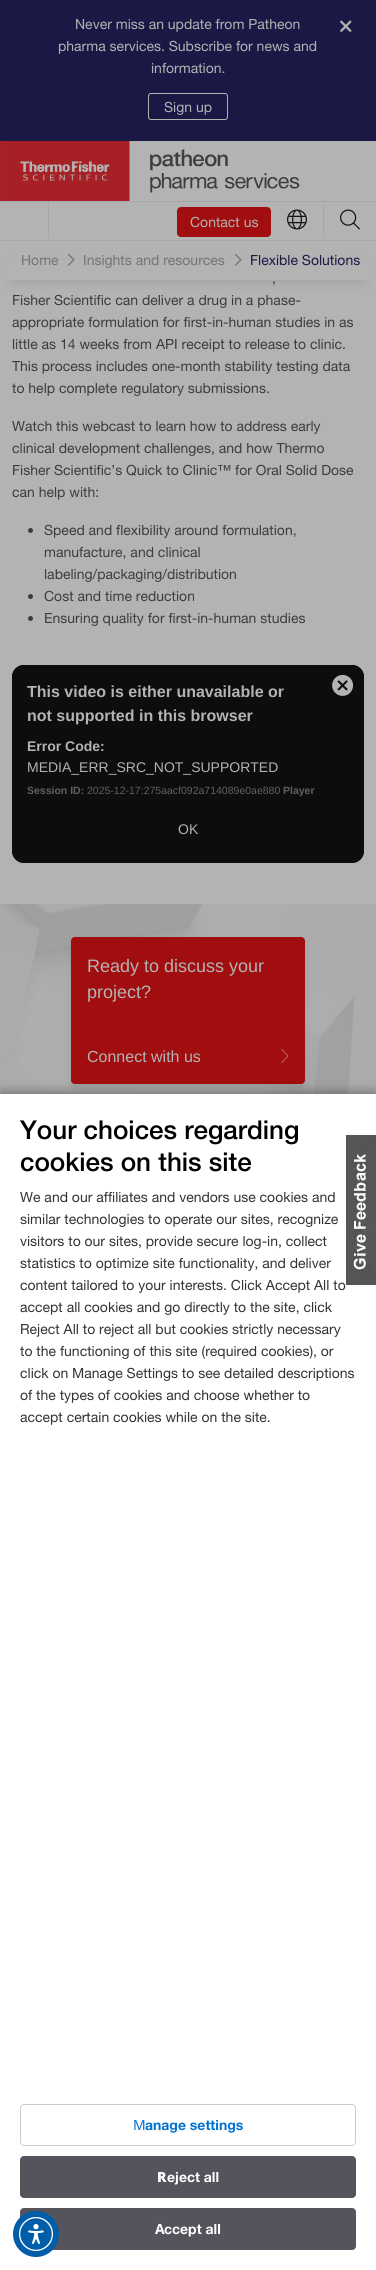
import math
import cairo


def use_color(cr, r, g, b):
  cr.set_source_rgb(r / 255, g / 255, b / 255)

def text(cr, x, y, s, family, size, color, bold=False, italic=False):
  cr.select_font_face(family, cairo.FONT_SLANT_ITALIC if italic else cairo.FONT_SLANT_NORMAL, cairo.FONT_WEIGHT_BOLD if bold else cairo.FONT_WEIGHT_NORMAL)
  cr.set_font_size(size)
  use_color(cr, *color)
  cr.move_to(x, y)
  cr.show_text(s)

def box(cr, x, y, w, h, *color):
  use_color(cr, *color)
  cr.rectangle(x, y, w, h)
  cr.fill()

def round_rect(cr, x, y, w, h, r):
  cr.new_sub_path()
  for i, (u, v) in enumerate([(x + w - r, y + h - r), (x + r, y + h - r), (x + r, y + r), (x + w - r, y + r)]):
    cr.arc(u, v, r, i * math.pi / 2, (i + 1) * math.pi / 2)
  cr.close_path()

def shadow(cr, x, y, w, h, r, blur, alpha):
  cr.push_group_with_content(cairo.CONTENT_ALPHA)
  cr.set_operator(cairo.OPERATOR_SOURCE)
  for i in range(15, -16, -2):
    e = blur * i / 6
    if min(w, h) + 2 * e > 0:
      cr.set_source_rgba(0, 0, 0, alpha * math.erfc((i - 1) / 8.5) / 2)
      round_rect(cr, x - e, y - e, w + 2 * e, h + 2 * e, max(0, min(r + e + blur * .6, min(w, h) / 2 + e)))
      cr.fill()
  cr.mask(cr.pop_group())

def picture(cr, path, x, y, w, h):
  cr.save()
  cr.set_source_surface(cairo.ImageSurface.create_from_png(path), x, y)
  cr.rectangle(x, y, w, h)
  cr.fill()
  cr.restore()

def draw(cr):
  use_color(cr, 179, 179, 179)
  cr.paint()
  box(cr, 0, 0, 376, 141, 27, 24, 69)
  picture(cr, "img_01.png", 340, 20, 12, 12)
  round_rect(cr, 148.5, 93.5, 79, 26, 2.5)
  use_color(cr, 179, 179, 179)
  cr.set_line_width(1)
  cr.stroke()
  picture(cr, "img_02.png", 0, 141, 130, 60)
  picture(cr, "img_03.png", 150, 149, 150, 44)
  box(cr, 0, 201, 376, 1, 167, 167, 167)
  cr.new_path()
  cr.move_to(49, 202)
  cr.line_to(49, 240)
  cr.line_to(48, 238)
  cr.line_to(48, 202)
  cr.close_path()
  cr.fill()
  use_color(cr, 162, 13, 15)
  round_rect(cr, 177.5, 207.5, 93, 29, 3.5)
  cr.fill_preserve()
  cr.stroke()
  picture(cr, "img_04.png", 287, 209, 20, 21)
  box(cr, 323, 205, 1, 32, 167, 167, 167)
  picture(cr, "img_05.png", 340, 209, 20, 21)
  use_color(cr, 0, 0, 0)
  shadow(cr, 12, 266, 352, 16, 0, 6, 0.1)
  box(cr, 6, 260, 364, 20, 179, 179, 179)
  box(cr, 0, 240, 376, 1, 167, 167, 167)
  picture(cr, "img_06.png", 68, 253, 7, 13)
  picture(cr, "img_06.png", 235, 253, 7, 13)
  use_color(cr, 59, 61, 62)
  cr.arc(30.5, 530.5, 2.5, 0, 2 * math.pi)
  cr.fill()
  cr.arc(30.5, 596.5, 2.5, 0, 2 * math.pi)
  cr.fill()
  cr.arc(30.5, 618.5, 2.5, 0, 2 * math.pi)
  cr.fill()
  picture(cr, "img_07.png", 12, 665, 352, 198)
  picture(cr, "img_08.png", 12, 665, 352, 198)
  use_color(cr, 0, 0, 0)
  round_rect(cr, 12, 665, 352, 198, 12)
  cr.fill()
  cr.set_source_rgba(0.067, 0.067, 0.067, 0.8)
  round_rect(cr, 12, 665, 352, 198, 12)
  cr.fill()
  picture(cr, "img_09.png", 332, 674, 22, 22)
  picture(cr, "img_10.png", 0, 904, 376, 190)
  use_color(cr, 24, 24, 24)
  shadow(cr, 71, 941, 234, 147, 4, 3, 0.1)
  use_color(cr, 162, 13, 15)
  round_rect(cr, 71, 937, 234, 147, 4)
  cr.fill()
  picture(cr, "img_11.png", 281, 1049, 8, 14)
  use_color(cr, 0, 0, 0)
  shadow(cr, 0, 1091, 376, 1176, 0, 5, 0.3)
  box(cr, 0, 1094, 376, 1176, 255, 255, 255)
  round_rect(cr, 20.5, 2104.5, 335, 41, 3.5)
  use_color(cr, 204, 204, 204)
  cr.stroke()
  use_color(cr, 84, 84, 92)
  round_rect(cr, 20.5, 2156.5, 335, 41, 3.5)
  cr.fill_preserve()
  cr.stroke()
  round_rect(cr, 20.5, 2208.5, 335, 41, 3.5)
  cr.fill_preserve()
  cr.stroke()
  use_color(cr, 0, 93, 170)
  cr.arc(36, 2234, 23, 0, 2 * math.pi)
  cr.fill()
  picture(cr, "img_13.png", 18, 2217, 36, 34)
  text(cr, 75, 29, "Never miss an update from Patheon", "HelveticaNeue", 14, (179, 179, 179))
  text(cr, 58, 51, "pharma services. Subscribe for news and", "HelveticaNeue", 14, (179, 179, 179))
  text(cr, 151, 73, "information.", "HelveticaNeue", 14, (179, 179, 179))
  text(cr, 164, 112, "Sign up", "HelveticaNeue", 14, (179, 179, 179))
  text(cr, 190, 227, "Contact us", "HelveticaNeue", 14, (179, 179, 179))
  text(cr, 21, 265, "Home", "HelveticaNeue", 14, (118, 116, 116))
  text(cr, 83, 265, "Insights and resources", "HelveticaNeue", 14, (118, 116, 116))
  text(cr, 250, 265, "Flexible Solutions", "HelveticaNeue", 14, (27, 24, 69))
  text(cr, 272, 283, ",", "HelveticaNeue", 14, (59, 61, 62))
  text(cr, 12, 305, "Fisher Scientific can deliver a drug in a phase-", "HelveticaNeue", 14, (59, 61, 62))
  text(cr, 12, 327, "appropriate formulation for first-in-human studies in as", "HelveticaNeue", 14, (59, 61, 62))
  text(cr, 12, 349, "little as 14 weeks from API receipt to release to clinic.", "HelveticaNeue", 14, (59, 61, 62))
  text(cr, 12, 371, "This process includes one-month stability testing data", "HelveticaNeue", 14, (59, 61, 62))
  text(cr, 12, 393, "to help complete regulatory submissions.", "HelveticaNeue", 14, (59, 61, 62))
  text(cr, 12, 431, "Watch this webcast to learn how to address early", "HelveticaNeue", 14, (59, 61, 62))
  text(cr, 12, 453, "clinical development challenges, and how Thermo", "HelveticaNeue", 14, (59, 61, 62))
  text(cr, 12, 475, "Fisher Scientific’s Quick to Clinic™ for Oral Solid Dose", "HelveticaNeue", 14, (59, 61, 62))
  text(cr, 12, 497, "can help with:", "HelveticaNeue", 14, (59, 61, 62))
  text(cr, 44, 535, "Speed and flexibility around formulation,", "HelveticaNeue", 14, (59, 61, 62))
  text(cr, 44, 557, "manufacture, and clinical", "HelveticaNeue", 14, (59, 61, 62))
  text(cr, 44, 579, "labeling/packaging/distribution", "HelveticaNeue", 14, (59, 61, 62))
  text(cr, 44, 601, "Cost and time reduction", "HelveticaNeue", 14, (59, 61, 62))
  text(cr, 44, 623, "Ensuring quality for first-in-human studies", "HelveticaNeue", 14, (59, 61, 62))
  text(cr, 27, 697, "This video is either unavailable or", "Liberation Sans", 16, (179, 179, 179), bold=True)
  text(cr, 27, 721, "not supported in this browser", "Liberation Sans", 16, (179, 179, 179), bold=True)
  text(cr, 27, 751, "Error Code:", "Liberation Sans", 14, (179, 179, 179), bold=True)
  text(cr, 27, 772, "MEDIA_ERR_SRC_NOT_SUPPORTED", "Liberation Sans", 14, (179, 179, 179))
  text(cr, 27, 794, "Session ID:", "Liberation Sans", 10.5, (96, 96, 96), bold=True)
  text(cr, 87, 794, "2025-12-17:275aacf092a714089e0ae880", "Liberation Sans", 10.5, (96, 96, 96))
  text(cr, 283, 794, "Player", "Liberation Sans", 10.5, (96, 96, 96), bold=True)
  text(cr, 178, 834, "OK", "Liberation Sans", 14, (179, 179, 179))
  text(cr, 87, 972, "Ready to discuss your", "Liberation Sans", 18, (179, 179, 179))
  text(cr, 87, 998, "project?", "Liberation Sans", 18, (179, 179, 179))
  text(cr, 87, 1062, "Connect with us", "Liberation Sans", 16, (179, 179, 179))
  text(cr, 20, 1139, "Your choices regarding", "HelveticaNeue Medium", 26, (0, 0, 0))
  text(cr, 20, 1171, "cookies on this site", "HelveticaNeue Medium", 26, (0, 0, 0))
  text(cr, 20, 1202, "We and our affiliates and vendors use cookies and", "HelveticaNeue", 14, (51, 51, 51))
  text(cr, 20, 1224, "similar technologies to operate our sites, recognize", "HelveticaNeue", 14, (51, 51, 51))
  text(cr, 20, 1246, "visitors to our sites, provide secure log-in, collect", "HelveticaNeue", 14, (51, 51, 51))
  text(cr, 20, 1268, "statistics to optimize site functionality, and deliver", "HelveticaNeue", 14, (51, 51, 51))
  text(cr, 20, 1290, "content tailored to your interests. Click Accept All to", "HelveticaNeue", 14, (51, 51, 51))
  text(cr, 20, 1312, "accept all cookies and go directly to the site, click", "HelveticaNeue", 14, (51, 51, 51))
  text(cr, 20, 1334, "Reject All to reject all but cookies strictly necessary", "HelveticaNeue", 14, (51, 51, 51))
  text(cr, 20, 1356, "to the functioning of this site (required cookies), or", "HelveticaNeue", 14, (51, 51, 51))
  text(cr, 20, 1378, "click on Manage Settings to see detailed descriptions", "HelveticaNeue", 14, (51, 51, 51))
  text(cr, 20, 1400, "of the types of cookies and choose whether to", "HelveticaNeue", 14, (51, 51, 51))
  text(cr, 20, 1422, "accept certain cookies while on the site.", "HelveticaNeue", 14, (51, 51, 51))
  text(cr, 133, 2130, "M", "Noto Sans", 14, (0, 113, 208))
  text(cr, 145, 2130, "anage settings", "HelveticaNeue", 14, (0, 113, 208), bold=True)
  text(cr, 157, 2182, "R", "Noto Sans Black", 14, (255, 255, 255))
  text(cr, 167, 2182, "eject all", "HelveticaNeue", 14, (255, 255, 255), bold=True)
  text(cr, 155, 2234, "A", "Noto Sans", 14, (255, 255, 255), bold=True)
  text(cr, 164, 2234, "ccept all", "HelveticaNeue", 14, (255, 255, 255), bold=True)
  picture(cr, "img_12.png", 345, 1135, 31, 151)


surface = cairo.ImageSurface(cairo.FORMAT_RGB24, 376, 2270)
cr = cairo.Context(surface)
options = cairo.FontOptions()
options.set_hint_metrics(cairo.HINT_METRICS_OFF)
options.set_hint_style(cairo.HINT_STYLE_NONE)
cr.set_font_options(options)
cr.set_miter_limit(4)
draw(cr)
surface.write_to_png("out.png")
